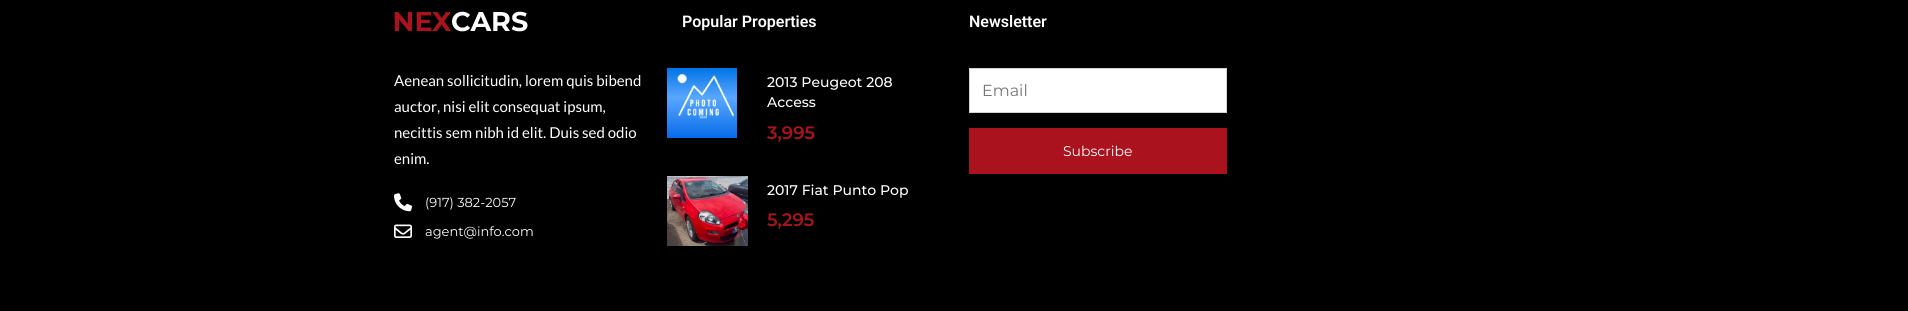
import math
import cairo


def use_color(cr, r, g, b):
  cr.set_source_rgb(r / 255, g / 255, b / 255)

def text(cr, x, y, s, family, size, color, bold=False, italic=False):
  cr.select_font_face(family, cairo.FONT_SLANT_ITALIC if italic else cairo.FONT_SLANT_NORMAL, cairo.FONT_WEIGHT_BOLD if bold else cairo.FONT_WEIGHT_NORMAL)
  cr.set_font_size(size)
  use_color(cr, *color)
  cr.move_to(x, y)
  cr.show_text(s)

def box(cr, x, y, w, h, *color):
  use_color(cr, *color)
  cr.rectangle(x, y, w, h)
  cr.fill()

def picture(cr, path, x, y, w, h):
  cr.save()
  cr.set_source_surface(cairo.ImageSurface.create_from_png(path), x, y)
  cr.rectangle(x, y, w, h)
  cr.fill()
  cr.restore()

def draw(cr):
  use_color(cr, 0, 0, 0)
  cr.paint()
  picture(cr, "img_01.png", 394, 11, 134, 21)
  picture(cr, "img_02.png", 394, 193, 18, 19)
  picture(cr, "img_03.png", 394, 224, 18, 14)
  picture(cr, "img_04.png", 667, 68, 70, 70)
  picture(cr, "img_05.png", 667, 176, 81, 70)
  use_color(cr, 255, 255, 255)
  cr.rectangle(969.5, 68.5, 257, 44)
  cr.fill_preserve()
  use_color(cr, 206, 212, 218)
  cr.set_line_width(1)
  cr.stroke()
  box(cr, 969, 128, 258, 46, 170, 18, 29)
  text(cr, 394, 86, "Aenean sollicitudin, lorem quis bibend", "Lato", 15, (255, 255, 255))
  text(cr, 394, 112, "auctor, nisi elit consequat ipsum,", "Lato", 15, (255, 255, 255))
  text(cr, 394, 138, "necittis sem nibh id elit. Duis sed odio", "Lato", 15, (255, 255, 255))
  text(cr, 394, 164, "enim.", "Lato", 15, (255, 255, 255))
  text(cr, 425, 207, "(917) 382-2057", "Montserrat", 13, (255, 255, 255))
  text(cr, 425, 236, "agent@info.com", "Montserrat", 13, (255, 255, 255))
  text(cr, 682, 27, "Popular Properties", "Roboto SemiBold", 16, (255, 255, 255))
  text(cr, 767, 87, "2013 Peugeot 208", "Montserrat Medium", 14, (255, 255, 255))
  text(cr, 767, 107, "Access", "Montserrat Medium", 14, (255, 255, 255))
  text(cr, 767, 139, "3,995", "Montserrat SemiBold", 18, (170, 18, 29))
  text(cr, 767, 195, "2017 Fiat Punto Pop", "Montserrat Medium", 14, (255, 255, 255))
  text(cr, 767, 226, "5,295", "Montserrat SemiBold", 18, (170, 18, 29))
  text(cr, 969, 27, "Newsletter", "Roboto SemiBold", 16, (255, 255, 255))
  text(cr, 982, 96, "Email", "Montserrat", 16, (117, 117, 117))
  text(cr, 1063, 156, "Subscribe", "Montserrat", 14, (255, 255, 255))


surface = cairo.ImageSurface(cairo.FORMAT_RGB24, 1908, 311)
cr = cairo.Context(surface)
options = cairo.FontOptions()
options.set_hint_metrics(cairo.HINT_METRICS_OFF)
options.set_hint_style(cairo.HINT_STYLE_NONE)
cr.set_font_options(options)
cr.set_miter_limit(4)
draw(cr)
surface.write_to_png("out.png")
